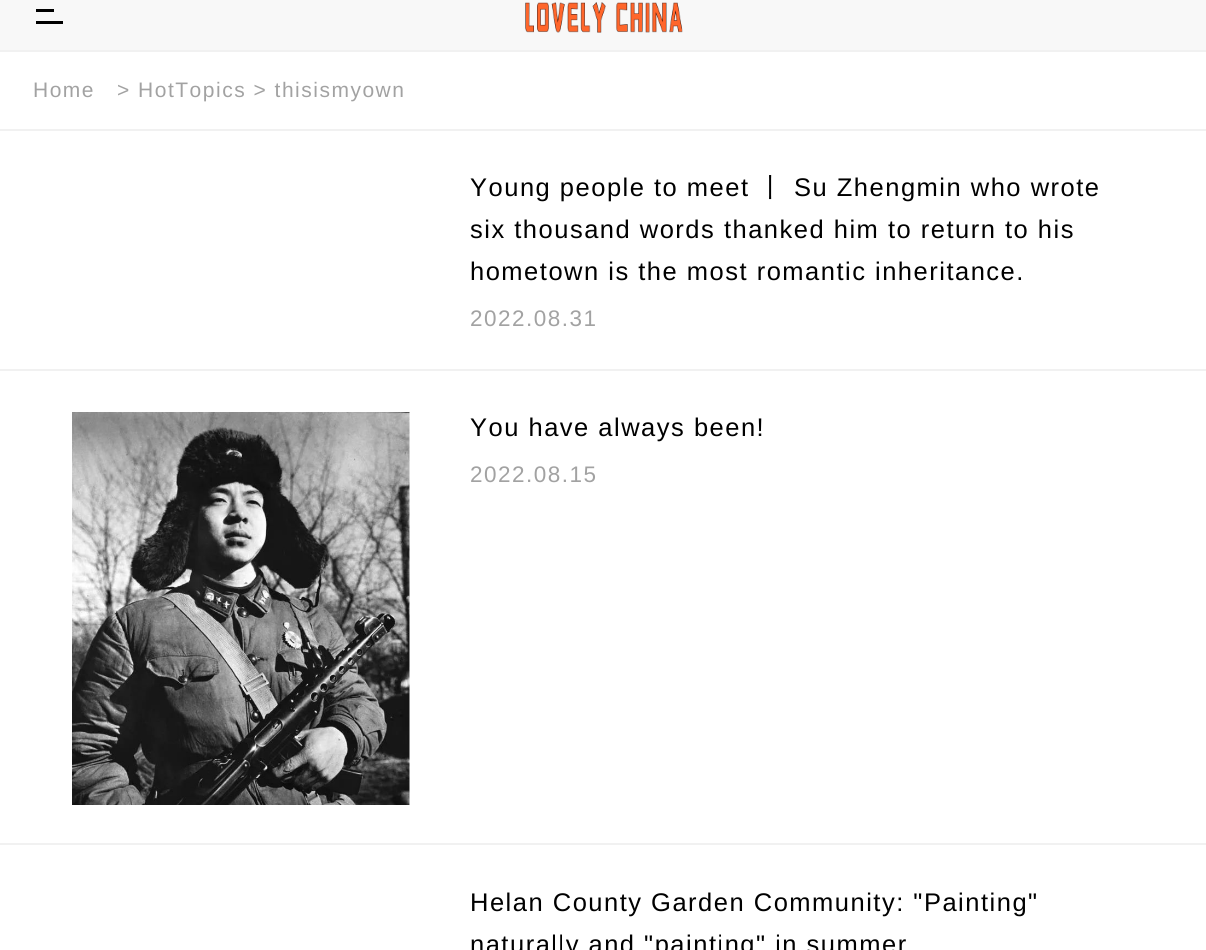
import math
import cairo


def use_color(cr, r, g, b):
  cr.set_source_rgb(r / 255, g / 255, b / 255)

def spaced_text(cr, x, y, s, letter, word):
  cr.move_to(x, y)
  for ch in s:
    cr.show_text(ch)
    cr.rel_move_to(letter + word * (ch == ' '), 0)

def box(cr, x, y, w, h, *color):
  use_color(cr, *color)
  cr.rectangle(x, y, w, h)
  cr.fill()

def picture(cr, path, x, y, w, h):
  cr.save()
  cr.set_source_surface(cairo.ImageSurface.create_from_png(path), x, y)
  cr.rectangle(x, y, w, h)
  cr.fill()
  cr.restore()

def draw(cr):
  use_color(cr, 255, 255, 255)
  cr.paint()
  box(cr, 0, 0, 1206, 50, 248, 248, 248)
  box(cr, 0, 50, 1206, 2, 241, 241, 241)
  box(cr, 36, 9, 18, 3, 0, 0, 0)
  box(cr, 36, 21, 27, 3, 0, 0, 0)
  picture(cr, "img_01.png", 525, 2, 158, 31)
  box(cr, 0, 129, 1206, 2, 241, 241, 241)
  box(cr, 0, 369, 1206, 2, 241, 241, 241)
  picture(cr, "img_02.png", 72, 412, 338, 393)
  box(cr, 0, 843, 1206, 2, 241, 241, 241)
  cr.select_font_face("Liberation Sans")
  cr.set_font_size(21)
  use_color(cr, 162, 162, 162)
  spaced_text(cr, 33, 97, "Home", 1.5, 0)
  spaced_text(cr, 117, 97, "> HotTopics > thisismyown", 1.5, 0)
  cr.set_font_size(25.5)
  use_color(cr, 0, 0, 0)
  spaced_text(cr, 470, 196, "Young people to meet", 1.5, 0)
  cr.select_font_face("WenQuanYi Zen Hei Medium")
  spaced_text(cr, 758, 196, "丨", 1.5, 0)
  cr.select_font_face("Liberation Sans")
  spaced_text(cr, 794, 196, "Su Zhengmin who wrote", 1.5, 0)
  spaced_text(cr, 470, 238, "six thousand words thanked him to return to his", 1.5, 0)
  spaced_text(cr, 470, 280, "hometown is the most romantic inheritance.", 1.5, 0)
  cr.set_font_size(22.5)
  use_color(cr, 162, 162, 162)
  spaced_text(cr, 470, 326, "2022.08.31", 1.5, 0)
  cr.set_font_size(25.5)
  use_color(cr, 0, 0, 0)
  spaced_text(cr, 470, 436, "You have always been!", 1.5, 0)
  cr.set_font_size(22.5)
  use_color(cr, 162, 162, 162)
  spaced_text(cr, 470, 482, "2022.08.15", 1.5, 0)
  cr.set_font_size(25.5)
  use_color(cr, 0, 0, 0)
  spaced_text(cr, 470, 911, "Helan County Garden Community: \"Painting\"", 1.5, 0)
  spaced_text(cr, 470, 953, "naturally and \"painting\" in summer", 1.5, 0)


surface = cairo.ImageSurface(cairo.FORMAT_RGB24, 1206, 950)
cr = cairo.Context(surface)
options = cairo.FontOptions()
options.set_hint_metrics(cairo.HINT_METRICS_OFF)
options.set_hint_style(cairo.HINT_STYLE_NONE)
cr.set_font_options(options)
cr.set_miter_limit(4)
draw(cr)
surface.write_to_png("out.png")
